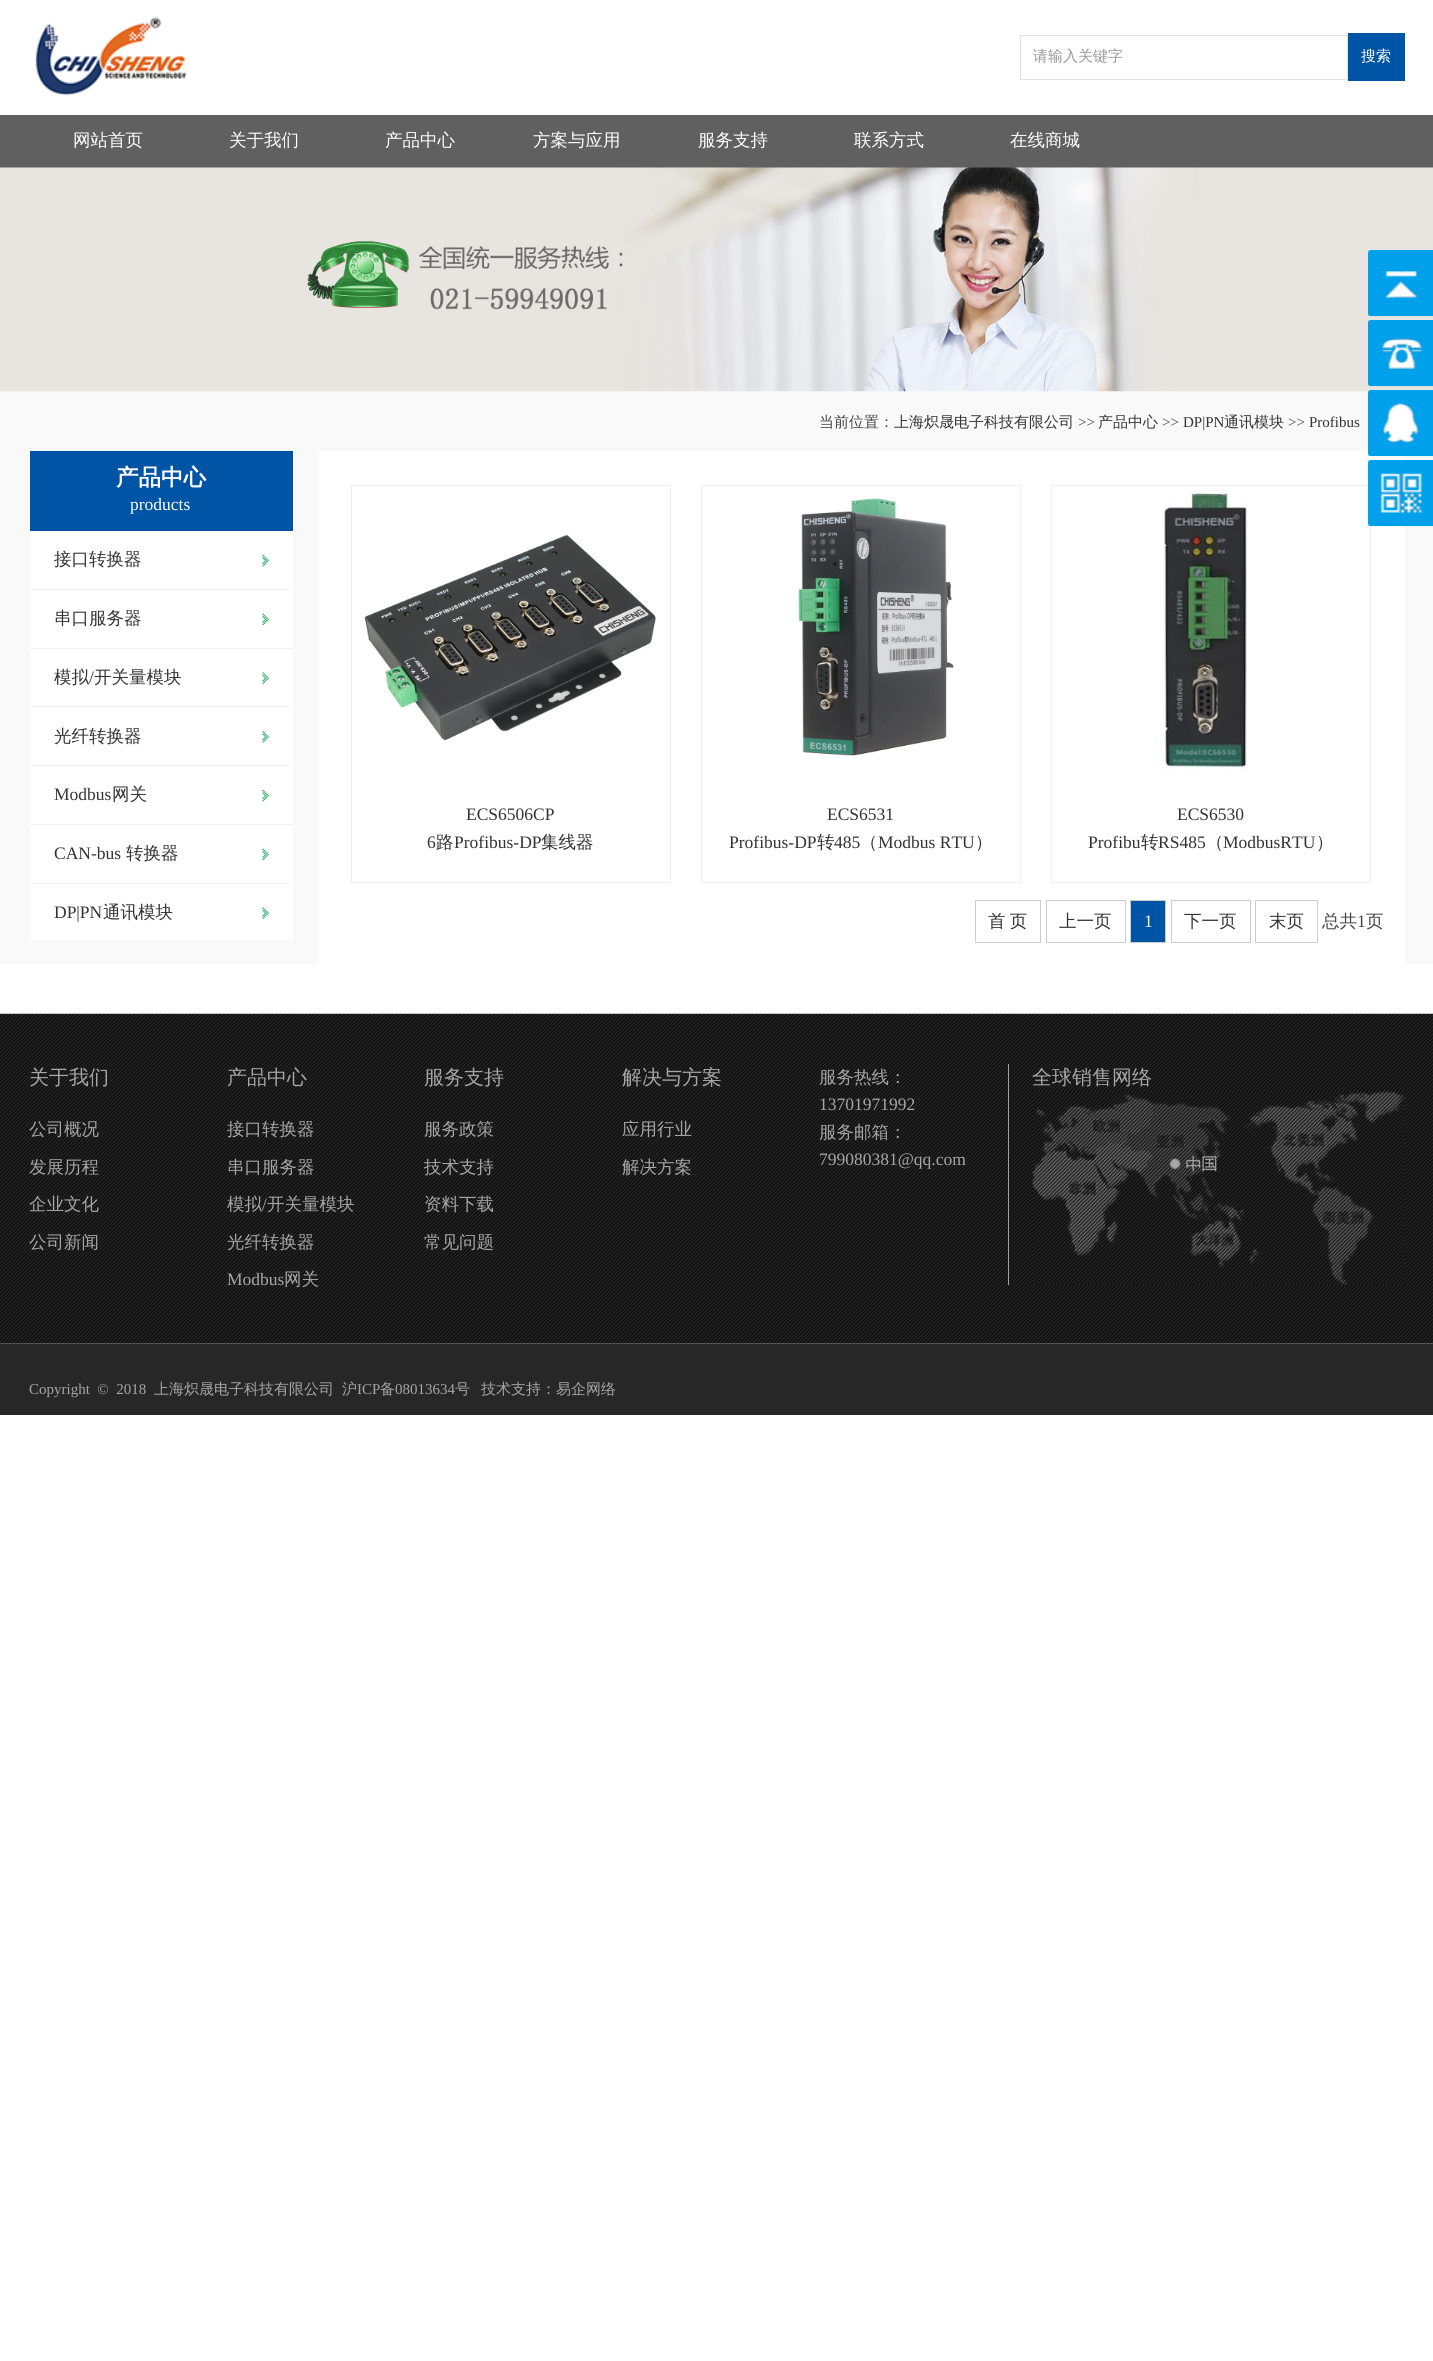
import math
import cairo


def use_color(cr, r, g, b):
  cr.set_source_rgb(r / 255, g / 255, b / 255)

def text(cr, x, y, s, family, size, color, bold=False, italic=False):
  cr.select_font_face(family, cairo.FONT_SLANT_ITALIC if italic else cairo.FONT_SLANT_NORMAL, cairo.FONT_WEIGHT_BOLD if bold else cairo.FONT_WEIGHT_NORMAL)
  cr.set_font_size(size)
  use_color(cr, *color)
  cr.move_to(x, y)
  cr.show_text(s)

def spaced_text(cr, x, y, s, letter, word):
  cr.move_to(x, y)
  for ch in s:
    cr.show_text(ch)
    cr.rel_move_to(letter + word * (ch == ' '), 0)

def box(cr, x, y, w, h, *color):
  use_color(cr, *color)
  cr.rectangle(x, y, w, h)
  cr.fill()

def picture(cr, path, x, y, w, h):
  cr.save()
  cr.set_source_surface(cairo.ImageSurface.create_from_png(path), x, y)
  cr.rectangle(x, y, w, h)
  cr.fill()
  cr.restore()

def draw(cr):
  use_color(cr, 255, 255, 255)
  cr.paint()
  picture(cr, "img_01.png", 35, 17, 152, 79)
  cr.rectangle(1020.5, 35.5, 327, 44)
  use_color(cr, 225, 225, 225)
  cr.set_line_width(1)
  cr.stroke()
  box(cr, 1348, 33, 57, 48, 0, 84, 165)
  box(cr, 0, 115, 1433, 53, 96, 96, 96)
  box(cr, 0, 391, 1433, 573, 249, 249, 249)
  picture(cr, "img_02.png", 0, 167, 1433, 225)
  box(cr, 30, 531, 263, 412, 255, 255, 255)
  box(cr, 30, 451, 263, 80, 0, 84, 165)
  picture(cr, "img_03.png", 262, 555, 7, 12)
  box(cr, 30, 589, 263, 1, 242, 242, 242)
  picture(cr, "img_04.png", 262, 613, 7, 12)
  box(cr, 30, 648, 263, 1, 242, 242, 242)
  picture(cr, "img_05.png", 262, 672, 7, 12)
  box(cr, 30, 706, 263, 1, 242, 242, 242)
  picture(cr, "img_06.png", 262, 731, 7, 12)
  box(cr, 30, 765, 263, 1, 242, 242, 242)
  picture(cr, "img_03.png", 262, 790, 7, 12)
  box(cr, 30, 824, 263, 1, 242, 242, 242)
  picture(cr, "img_04.png", 262, 848, 7, 12)
  box(cr, 30, 883, 263, 1, 242, 242, 242)
  picture(cr, "img_05.png", 262, 907, 7, 12)
  box(cr, 30, 941, 263, 1, 242, 242, 242)
  box(cr, 318, 451, 1087, 513, 255, 255, 255)
  cr.rectangle(351.5, 485.5, 319, 397)
  use_color(cr, 238, 238, 238)
  cr.stroke()
  picture(cr, "img_07.png", 364, 535, 292, 205)
  cr.rectangle(701.5, 485.5, 319, 397)
  cr.stroke()
  picture(cr, "img_08.png", 798, 498, 156, 261)
  cr.rectangle(1051.5, 485.5, 319, 397)
  cr.stroke()
  picture(cr, "img_09.png", 1154, 486, 93, 285)
  cr.rectangle(975.5, 900.5, 65, 42)
  use_color(cr, 204, 204, 204)
  cr.stroke()
  cr.rectangle(1046.5, 900.5, 79, 42)
  cr.stroke()
  use_color(cr, 0, 84, 165)
  cr.rectangle(1130.5, 900.5, 35, 42)
  cr.fill_preserve()
  use_color(cr, 204, 204, 204)
  cr.stroke()
  cr.rectangle(1171.5, 900.5, 79, 42)
  cr.stroke()
  cr.rectangle(1255.5, 900.5, 62, 42)
  cr.stroke()
  picture(cr, "img_10.png", 1368, 250, 65, 67)
  picture(cr, "img_11.png", 1368, 320, 65, 67)
  picture(cr, "img_12.png", 1368, 390, 65, 67)
  picture(cr, "img_13.png", 1368, 460, 65, 67)
  picture(cr, "img_14.png", 0, 1013, 1433, 331)
  box(cr, 1008, 1064, 1, 221, 162, 162, 162)
  picture(cr, "img_15.png", 1032, 1091, 373, 194)
  box(cr, 0, 1344, 1433, 71, 39, 39, 39)
  text(cr, 1033, 61, "请输入关键字", "WenQuanYi Zen Hei Medium", 15, (153, 153, 153))
  text(cr, 1361, 61, "搜索", "WenQuanYi Zen Hei Medium", 15, (255, 255, 255))
  text(cr, 73, 146, "网站首页", "WenQuanYi Zen Hei Medium", 17.5, (255, 255, 255))
  text(cr, 229, 146, "关于我们", "WenQuanYi Zen Hei Medium", 17.5, (255, 255, 255))
  text(cr, 385, 146, "产品中心", "WenQuanYi Zen Hei Medium", 17.5, (255, 255, 255))
  text(cr, 533, 146, "方案与应用", "WenQuanYi Zen Hei Medium", 17.5, (255, 255, 255))
  text(cr, 698, 146, "服务支持", "WenQuanYi Zen Hei Medium", 17.5, (255, 255, 255))
  text(cr, 854, 146, "联系方式", "WenQuanYi Zen Hei Medium", 17.5, (255, 255, 255))
  text(cr, 1010, 146, "在线商城", "WenQuanYi Zen Hei Medium", 17.5, (255, 255, 255))
  text(cr, 819, 427, "当前位置：", "WenQuanYi Zen Hei Medium", 15, (68, 68, 68))
  text(cr, 894, 427, "上海炽晟电子科技有限公司", "WenQuanYi Zen Hei Medium", 15, (51, 51, 51))
  text(cr, 1078, 427, ">>", "Liberation Serif", 15, (68, 68, 68))
  text(cr, 1098, 427, "产品中心", "WenQuanYi Zen Hei Medium", 15, (51, 51, 51))
  text(cr, 1162, 427, ">>", "Liberation Serif", 15, (68, 68, 68))
  text(cr, 1183, 427, "DP|PN", "Liberation Serif", 15, (51, 51, 51))
  text(cr, 1224, 427, "通讯模块", "WenQuanYi Zen Hei Medium", 15, (51, 51, 51))
  text(cr, 1288, 427, ">>", "Liberation Serif", 15, (68, 68, 68))
  text(cr, 1309, 427, "Profibus", "Liberation Serif", 15, (51, 51, 51))
  text(cr, 116, 485, "产品中心", "WenQuanYi Zen Hei", 22.5, (255, 255, 255), bold=True)
  text(cr, 130, 510, "products", "Liberation Serif", 17.5, (255, 255, 255))
  text(cr, 54, 565, "接口转换器", "WenQuanYi Zen Hei Medium", 17.5, (51, 51, 51))
  text(cr, 54, 624, "串口服务器", "WenQuanYi Zen Hei Medium", 17.5, (51, 51, 51))
  text(cr, 54, 683, "模拟", "WenQuanYi Zen Hei Medium", 17.5, (51, 51, 51))
  text(cr, 89, 683, "/", "Liberation Serif", 17.5, (51, 51, 51))
  text(cr, 94, 683, "开关量模块", "WenQuanYi Zen Hei Medium", 17.5, (51, 51, 51))
  text(cr, 54, 742, "光纤转换器", "WenQuanYi Zen Hei Medium", 17.5, (51, 51, 51))
  text(cr, 54, 800, "Modbus", "Liberation Serif", 17.5, (51, 51, 51))
  text(cr, 112, 800, "网关", "WenQuanYi Zen Hei Medium", 17.5, (51, 51, 51))
  text(cr, 54, 859, "CAN-bus", "Liberation Serif", 17.5, (51, 51, 51))
  text(cr, 126, 859, "转换器", "WenQuanYi Zen Hei Medium", 17.5, (51, 51, 51))
  text(cr, 54, 918, "DP|PN", "Liberation Serif", 17.5, (51, 51, 51))
  text(cr, 103, 918, "通讯模块", "WenQuanYi Zen Hei Medium", 17.5, (51, 51, 51))
  text(cr, 466, 820, "ECS6506CP", "Liberation Serif", 17.5, (51, 51, 51))
  text(cr, 427, 848, "6", "Liberation Serif", 17.5, (51, 51, 51))
  text(cr, 436, 848, "路", "WenQuanYi Zen Hei Medium", 17.5, (51, 51, 51))
  text(cr, 454, 848, "Profibus-DP", "Liberation Serif", 17.5, (51, 51, 51))
  text(cr, 541, 848, "集线器", "WenQuanYi Zen Hei Medium", 17.5, (51, 51, 51))
  text(cr, 827, 820, "ECS6531", "Liberation Serif", 17.5, (51, 51, 51))
  text(cr, 729, 848, "Profibus-DP", "Liberation Serif", 17.5, (51, 51, 51))
  text(cr, 817, 848, "转", "WenQuanYi Zen Hei Medium", 17.5, (51, 51, 51))
  text(cr, 834, 848, "485", "Liberation Serif", 17.5, (51, 51, 51))
  text(cr, 860, 848, "（", "WenQuanYi Zen Hei Medium", 17.5, (51, 51, 51))
  text(cr, 878, 848, "Modbus RTU", "Liberation Serif", 17.5, (51, 51, 51))
  text(cr, 975, 848, "）", "WenQuanYi Zen Hei Medium", 17.5, (51, 51, 51))
  text(cr, 1177, 820, "ECS6530", "Liberation Serif", 17.5, (51, 51, 51))
  text(cr, 1088, 848, "Profibu", "Liberation Serif", 17.5, (51, 51, 51))
  text(cr, 1141, 848, "转", "WenQuanYi Zen Hei Medium", 17.5, (51, 51, 51))
  text(cr, 1158, 848, "RS485", "Liberation Serif", 17.5, (51, 51, 51))
  text(cr, 1206, 848, "（", "WenQuanYi Zen Hei Medium", 17.5, (51, 51, 51))
  text(cr, 1223, 848, "ModbusRTU", "Liberation Serif", 17.5, (51, 51, 51))
  text(cr, 1316, 848, "）", "WenQuanYi Zen Hei Medium", 17.5, (51, 51, 51))
  spaced_text(cr, 988, 927, "首 页", 0, -1)
  text(cr, 1059, 927, "上一页", "WenQuanYi Zen Hei Medium", 17.5, (51, 51, 51))
  text(cr, 1144, 927, "1", "Liberation Serif", 17.5, (255, 255, 255))
  text(cr, 1184, 927, "下一页", "WenQuanYi Zen Hei Medium", 17.5, (51, 51, 51))
  text(cr, 1269, 927, "末页", "WenQuanYi Zen Hei Medium", 17.5, (51, 51, 51))
  text(cr, 1322, 927, "总共", "WenQuanYi Zen Hei Medium", 17.5, (68, 68, 68))
  text(cr, 1357, 927, "1", "Liberation Serif", 17.5, (68, 68, 68))
  text(cr, 1366, 927, "页", "WenQuanYi Zen Hei Medium", 17.5, (68, 68, 68))
  text(cr, 29, 1084, "关于我们", "WenQuanYi Zen Hei Medium", 20, (166, 166, 166))
  text(cr, 29, 1135, "公司概况", "WenQuanYi Zen Hei Medium", 17.5, (166, 166, 166))
  text(cr, 29, 1173, "发展历程", "WenQuanYi Zen Hei Medium", 17.5, (166, 166, 166))
  text(cr, 29, 1210, "企业文化", "WenQuanYi Zen Hei Medium", 17.5, (166, 166, 166))
  text(cr, 29, 1248, "公司新闻", "WenQuanYi Zen Hei Medium", 17.5, (166, 166, 166))
  text(cr, 227, 1084, "产品中心", "WenQuanYi Zen Hei Medium", 20, (166, 166, 166))
  text(cr, 227, 1135, "接口转换器", "WenQuanYi Zen Hei Medium", 17.5, (166, 166, 166))
  text(cr, 227, 1173, "串口服务器", "WenQuanYi Zen Hei Medium", 17.5, (166, 166, 166))
  text(cr, 227, 1210, "模拟", "WenQuanYi Zen Hei Medium", 17.5, (166, 166, 166))
  text(cr, 262, 1210, "/", "Liberation Serif", 17.5, (166, 166, 166))
  text(cr, 267, 1210, "开关量模块", "WenQuanYi Zen Hei Medium", 17.5, (166, 166, 166))
  text(cr, 227, 1248, "光纤转换器", "WenQuanYi Zen Hei Medium", 17.5, (166, 166, 166))
  text(cr, 227, 1285, "Modbus", "Liberation Serif", 17.5, (166, 166, 166))
  text(cr, 284, 1285, "网关", "WenQuanYi Zen Hei Medium", 17.5, (166, 166, 166))
  text(cr, 424, 1084, "服务支持", "WenQuanYi Zen Hei Medium", 20, (166, 166, 166))
  text(cr, 424, 1135, "服务政策", "WenQuanYi Zen Hei Medium", 17.5, (166, 166, 166))
  text(cr, 424, 1173, "技术支持", "WenQuanYi Zen Hei Medium", 17.5, (166, 166, 166))
  text(cr, 424, 1210, "资料下载", "WenQuanYi Zen Hei Medium", 17.5, (166, 166, 166))
  text(cr, 424, 1248, "常见问题", "WenQuanYi Zen Hei Medium", 17.5, (166, 166, 166))
  text(cr, 622, 1084, "解决与方案", "WenQuanYi Zen Hei Medium", 20, (166, 166, 166))
  text(cr, 622, 1135, "应用行业", "WenQuanYi Zen Hei Medium", 17.5, (166, 166, 166))
  text(cr, 622, 1173, "解决方案", "WenQuanYi Zen Hei Medium", 17.5, (166, 166, 166))
  text(cr, 819, 1083, "服务热线：", "WenQuanYi Zen Hei Medium", 17.5, (166, 166, 166))
  text(cr, 819, 1110, "13701971992", "Liberation Serif", 17.5, (166, 166, 166))
  text(cr, 819, 1138, "服务邮箱：", "WenQuanYi Zen Hei Medium", 17.5, (166, 166, 166))
  text(cr, 819, 1165, "799080381@qq.com", "Liberation Serif", 17.5, (166, 166, 166))
  text(cr, 1032, 1084, "全球销售网络", "WenQuanYi Zen Hei Medium", 20, (166, 166, 166))
  text(cr, 29, 1394, "Copyright  ©  2018", "Liberation Serif", 15, (166, 166, 166))
  text(cr, 154, 1394, "上海炽晟电子科技有限公司", "WenQuanYi Zen Hei Medium", 15, (166, 166, 166))
  text(cr, 342, 1394, "沪", "WenQuanYi Zen Hei Medium", 15, (166, 166, 166))
  text(cr, 357, 1394, "ICP", "Liberation Serif", 15, (166, 166, 166))
  text(cr, 380, 1394, "备", "WenQuanYi Zen Hei Medium", 15, (166, 166, 166))
  text(cr, 395, 1394, "08013634", "Liberation Serif", 15, (166, 166, 166))
  text(cr, 455, 1394, "号", "WenQuanYi Zen Hei Medium", 15, (166, 166, 166))
  text(cr, 481, 1394, "技术支持：易企网络", "WenQuanYi Zen Hei Medium", 15, (166, 166, 166))


surface = cairo.ImageSurface(cairo.FORMAT_RGB24, 1433, 2361)
cr = cairo.Context(surface)
options = cairo.FontOptions()
options.set_hint_metrics(cairo.HINT_METRICS_OFF)
options.set_hint_style(cairo.HINT_STYLE_NONE)
cr.set_font_options(options)
cr.set_miter_limit(4)
draw(cr)
surface.write_to_png("out.png")
